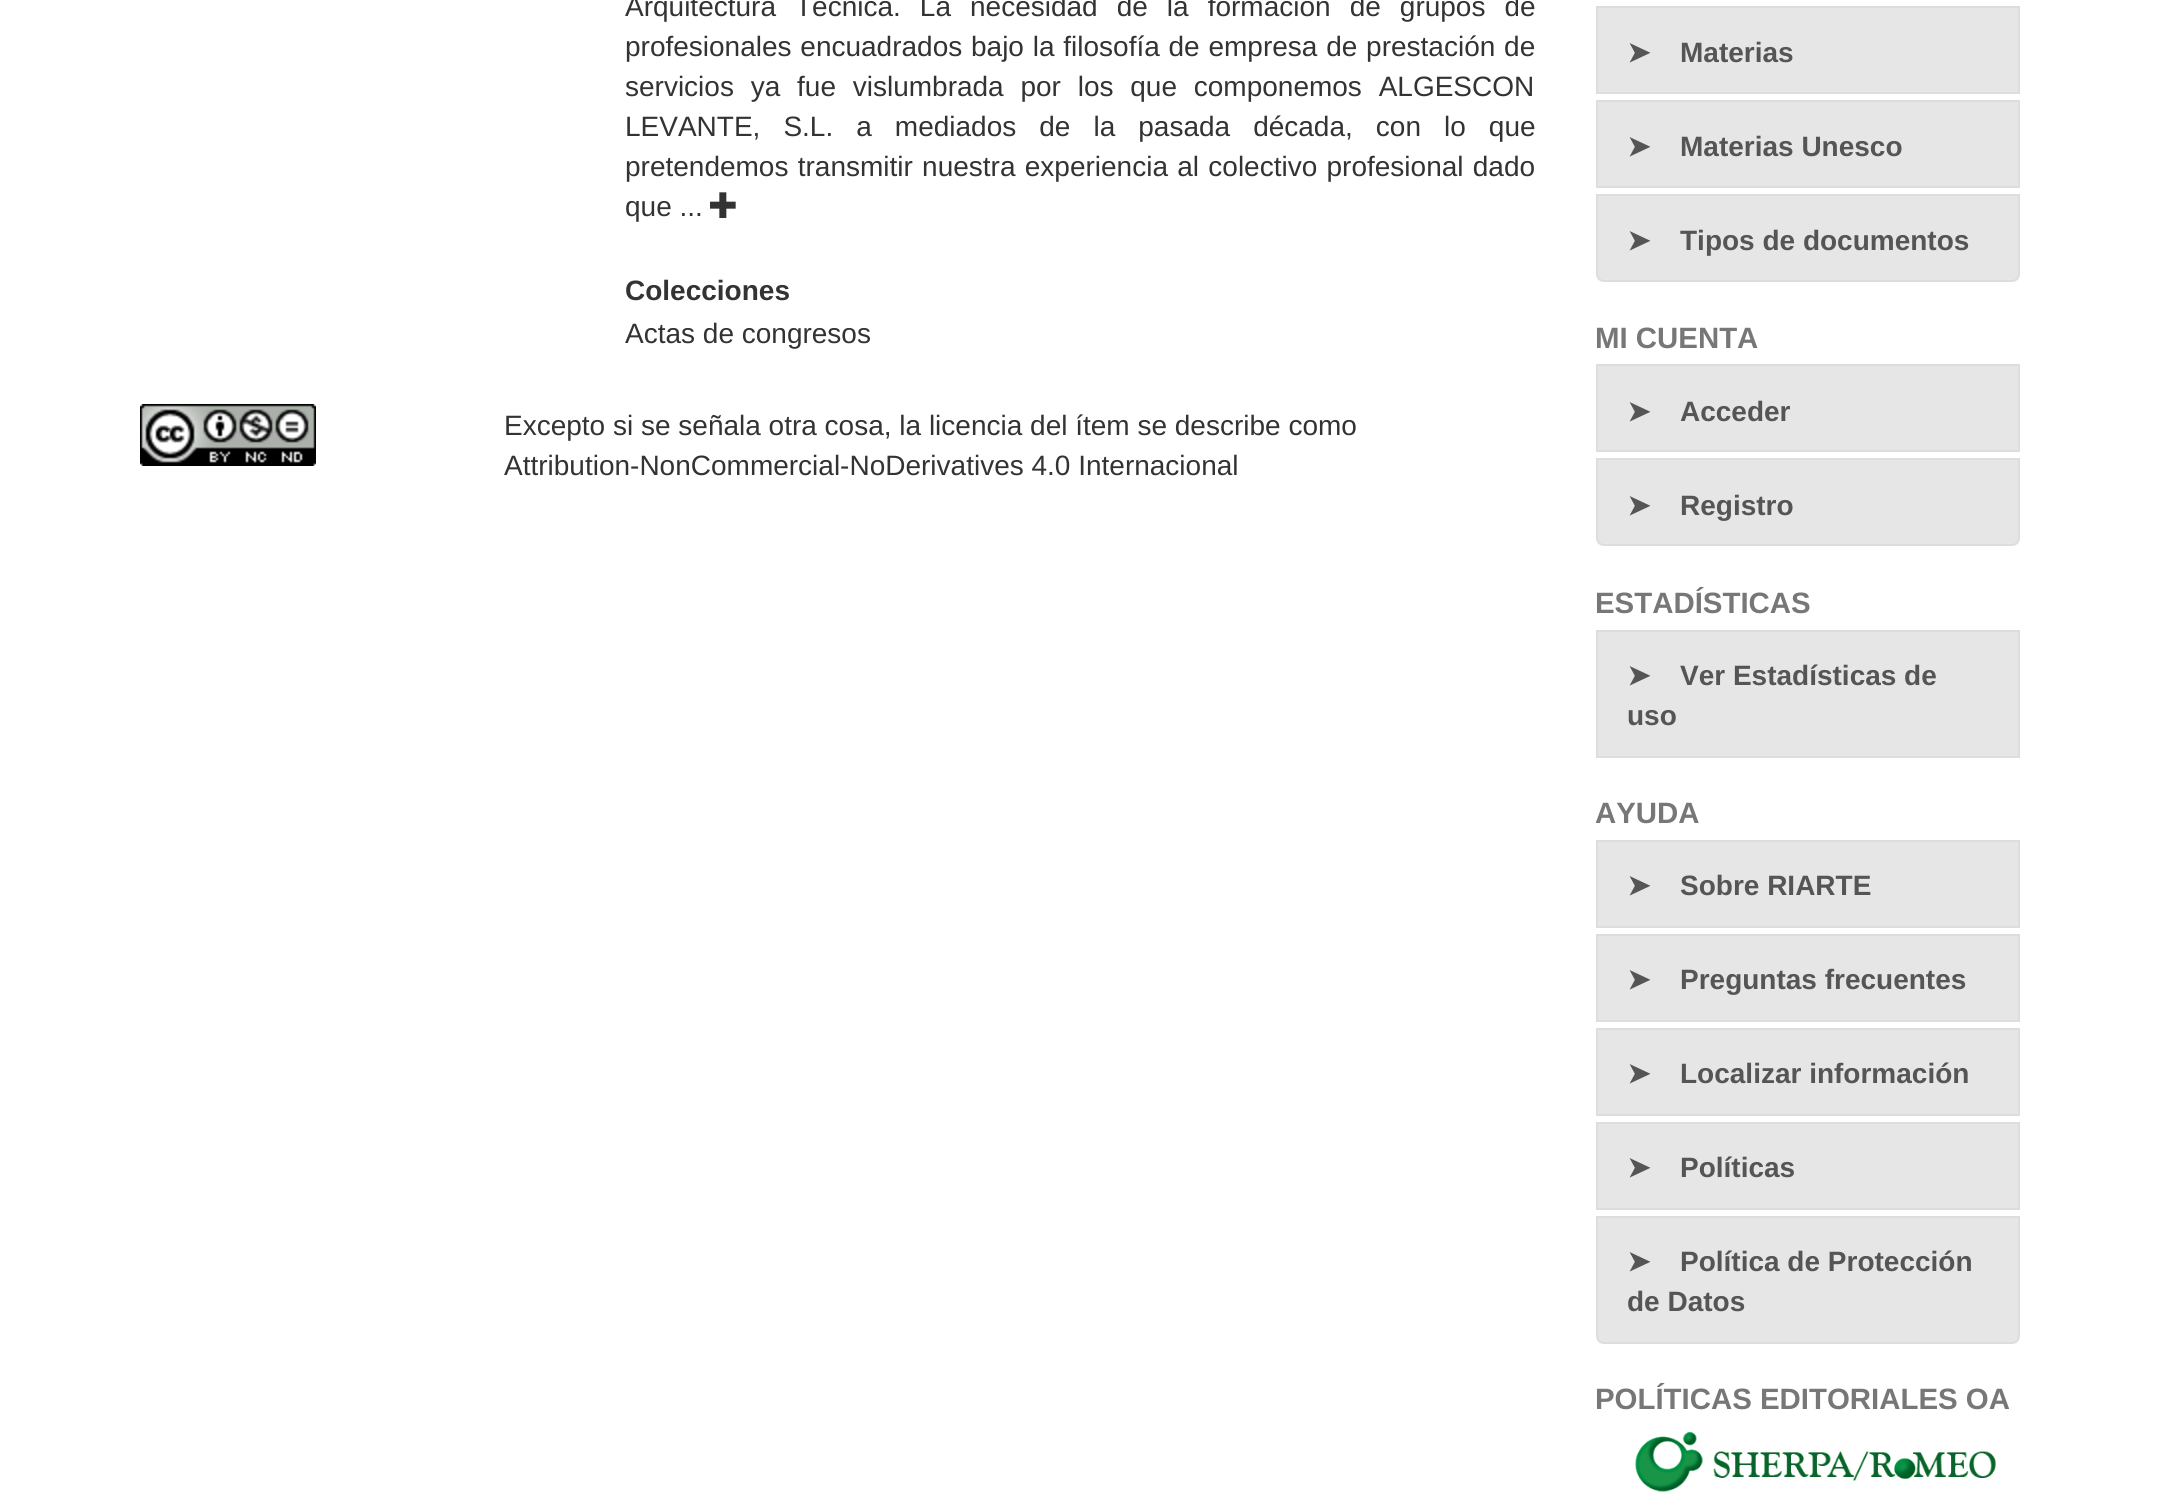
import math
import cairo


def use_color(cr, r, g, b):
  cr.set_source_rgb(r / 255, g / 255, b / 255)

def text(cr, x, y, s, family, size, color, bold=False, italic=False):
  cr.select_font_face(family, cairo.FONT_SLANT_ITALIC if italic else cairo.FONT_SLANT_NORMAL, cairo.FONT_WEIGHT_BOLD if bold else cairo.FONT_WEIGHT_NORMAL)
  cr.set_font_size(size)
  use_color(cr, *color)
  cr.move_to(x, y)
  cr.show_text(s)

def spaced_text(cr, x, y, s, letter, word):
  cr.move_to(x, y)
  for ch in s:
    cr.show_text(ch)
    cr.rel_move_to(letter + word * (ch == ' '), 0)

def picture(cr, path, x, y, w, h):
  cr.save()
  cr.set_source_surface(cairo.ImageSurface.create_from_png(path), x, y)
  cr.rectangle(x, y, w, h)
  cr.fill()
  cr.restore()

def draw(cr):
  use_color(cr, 255, 255, 255)
  cr.paint()
  picture(cr, "img_01.png", 710, 192, 26, 26)
  picture(cr, "img_02.png", 140, 404, 176, 62)
  use_color(cr, 230, 230, 230)
  cr.rectangle(1597, 7, 422, 86)
  cr.fill_preserve()
  use_color(cr, 221, 221, 221)
  cr.stroke()
  use_color(cr, 230, 230, 230)
  cr.rectangle(1597, 101, 422, 86)
  cr.fill_preserve()
  use_color(cr, 221, 221, 221)
  cr.stroke()
  use_color(cr, 230, 230, 230)
  cr.new_path()
  cr.move_to(1597, 195)
  cr.line_to(2019, 195)
  cr.line_to(2019, 274)
  cr.curve_to(2019, 278, 2016, 281, 2012, 281)
  cr.line_to(1604, 281)
  cr.curve_to(1600, 281, 1597, 278, 1597, 274)
  cr.close_path()
  cr.fill_preserve()
  use_color(cr, 221, 221, 221)
  cr.stroke()
  use_color(cr, 230, 230, 230)
  cr.rectangle(1597, 365, 422, 86)
  cr.fill_preserve()
  use_color(cr, 221, 221, 221)
  cr.stroke()
  use_color(cr, 230, 230, 230)
  cr.new_path()
  cr.move_to(1597, 459)
  cr.line_to(2019, 459)
  cr.line_to(2019, 538)
  cr.curve_to(2019, 542, 2016, 545, 2012, 545)
  cr.line_to(1604, 545)
  cr.curve_to(1600, 545, 1597, 542, 1597, 538)
  cr.close_path()
  cr.fill_preserve()
  use_color(cr, 221, 221, 221)
  cr.stroke()
  use_color(cr, 230, 230, 230)
  cr.rectangle(1597, 631, 422, 126)
  cr.fill_preserve()
  use_color(cr, 221, 221, 221)
  cr.stroke()
  use_color(cr, 230, 230, 230)
  cr.rectangle(1597, 841, 422, 86)
  cr.fill_preserve()
  use_color(cr, 221, 221, 221)
  cr.stroke()
  use_color(cr, 230, 230, 230)
  cr.rectangle(1597, 935, 422, 86)
  cr.fill_preserve()
  use_color(cr, 221, 221, 221)
  cr.stroke()
  use_color(cr, 230, 230, 230)
  cr.rectangle(1597, 1029, 422, 86)
  cr.fill_preserve()
  use_color(cr, 221, 221, 221)
  cr.stroke()
  use_color(cr, 230, 230, 230)
  cr.rectangle(1597, 1123, 422, 86)
  cr.fill_preserve()
  use_color(cr, 221, 221, 221)
  cr.stroke()
  use_color(cr, 230, 230, 230)
  cr.new_path()
  cr.move_to(1597, 1217)
  cr.line_to(2019, 1217)
  cr.line_to(2019, 1336)
  cr.curve_to(2019, 1340, 2016, 1343, 2012, 1343)
  cr.line_to(1604, 1343)
  cr.curve_to(1600, 1343, 1597, 1340, 1597, 1336)
  cr.close_path()
  cr.fill_preserve()
  use_color(cr, 221, 221, 221)
  cr.stroke()
  picture(cr, "img_03.png", 1635, 1432, 361, 60)
  cr.select_font_face("Liberation Sans")
  cr.set_font_size(28)
  use_color(cr, 51, 51, 51)
  spaced_text(cr, 625, 16, "Arquitectura Técnica. La necesidad de la formación de grupos de", 0, 11.25)
  spaced_text(cr, 625, 56, "profesionales encuadrados bajo la filosofía de empresa de prestación de", 0, 1)
  spaced_text(cr, 625, 96, "servicios ya fue vislumbrada por los que componemos ALGESCON", 0, 9)
  spaced_text(cr, 625, 136, "LEVANTE, S.L. a mediados de la pasada década, con lo que", 0, 15.25)
  spaced_text(cr, 625, 176, "pretendemos transmitir nuestra experiencia al colectivo profesional dado", 0, 1.5)
  text(cr, 625, 216, "que ...", "Liberation Sans", 28, (51, 51, 51))
  text(cr, 625, 300, "Colecciones", "Liberation Sans", 28, (51, 51, 51), bold=True)
  text(cr, 625, 343, "Actas de congresos", "Liberation Sans", 28, (51, 51, 51))
  text(cr, 504, 435, "Excepto si se señala otra cosa, la licencia del ítem se describe como", "Liberation Sans", 28, (51, 51, 51))
  text(cr, 504, 475, "Attribution-NonCommercial-NoDerivatives 4.0 Internacional", "Liberation Sans", 28, (51, 51, 51))
  text(cr, 1627, 62, "➤", "DejaVu Sans", 28, (85, 85, 85), bold=True)
  text(cr, 1680, 62, "Materias", "Liberation Sans", 28, (85, 85, 85), bold=True)
  text(cr, 1627, 156, "➤", "DejaVu Sans", 28, (85, 85, 85), bold=True)
  text(cr, 1680, 156, "Materias Unesco", "Liberation Sans", 28, (85, 85, 85), bold=True)
  text(cr, 1627, 250, "➤", "DejaVu Sans", 28, (85, 85, 85), bold=True)
  text(cr, 1680, 250, "Tipos de documentos", "Liberation Sans", 28, (85, 85, 85), bold=True)
  text(cr, 1595, 348, "MI CUENTA", "Liberation Sans", 29.4, (119, 119, 119), bold=True)
  text(cr, 1627, 421, "➤", "DejaVu Sans", 28, (85, 85, 85), bold=True)
  text(cr, 1680, 421, "Acceder", "Liberation Sans", 28, (85, 85, 85), bold=True)
  text(cr, 1627, 515, "➤", "DejaVu Sans", 28, (85, 85, 85), bold=True)
  text(cr, 1680, 515, "Registro", "Liberation Sans", 28, (85, 85, 85), bold=True)
  text(cr, 1595, 613, "ESTADÍSTICAS", "Liberation Sans", 29.4, (119, 119, 119), bold=True)
  text(cr, 1627, 685, "➤", "DejaVu Sans", 28, (85, 85, 85), bold=True)
  text(cr, 1680, 685, "Ver Estadísticas de", "Liberation Sans", 28, (85, 85, 85), bold=True)
  text(cr, 1627, 725, "uso", "Liberation Sans", 28, (85, 85, 85), bold=True)
  text(cr, 1595, 823, "AYUDA", "Liberation Sans", 29.4, (119, 119, 119), bold=True)
  text(cr, 1627, 895, "➤", "DejaVu Sans", 28, (85, 85, 85), bold=True)
  text(cr, 1680, 895, "Sobre RIARTE", "Liberation Sans", 28, (85, 85, 85), bold=True)
  text(cr, 1627, 989, "➤", "DejaVu Sans", 28, (85, 85, 85), bold=True)
  text(cr, 1680, 989, "Preguntas frecuentes", "Liberation Sans", 28, (85, 85, 85), bold=True)
  text(cr, 1627, 1083, "➤", "DejaVu Sans", 28, (85, 85, 85), bold=True)
  text(cr, 1680, 1083, "Localizar información", "Liberation Sans", 28, (85, 85, 85), bold=True)
  text(cr, 1627, 1177, "➤", "DejaVu Sans", 28, (85, 85, 85), bold=True)
  text(cr, 1680, 1177, "Políticas", "Liberation Sans", 28, (85, 85, 85), bold=True)
  text(cr, 1627, 1271, "➤", "DejaVu Sans", 28, (85, 85, 85), bold=True)
  text(cr, 1680, 1271, "Política de Protección", "Liberation Sans", 28, (85, 85, 85), bold=True)
  text(cr, 1627, 1311, "de Datos", "Liberation Sans", 28, (85, 85, 85), bold=True)
  text(cr, 1595, 1409, "POLÍTICAS EDITORIALES OA", "Liberation Sans", 29.4, (119, 119, 119), bold=True)


surface = cairo.ImageSurface(cairo.FORMAT_RGB24, 2159, 1500)
cr = cairo.Context(surface)
options = cairo.FontOptions()
options.set_hint_metrics(cairo.HINT_METRICS_OFF)
options.set_hint_style(cairo.HINT_STYLE_NONE)
cr.set_font_options(options)
cr.set_miter_limit(4)
draw(cr)
surface.write_to_png("out.png")
